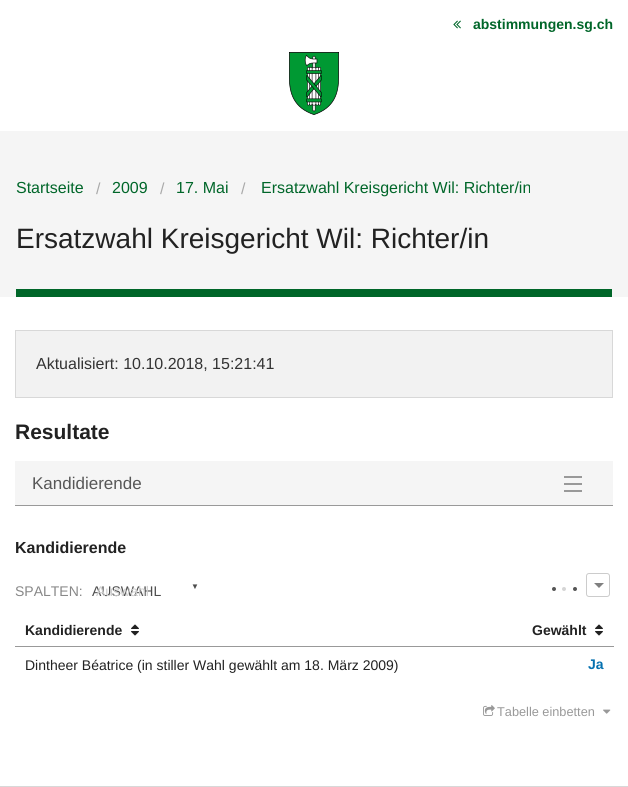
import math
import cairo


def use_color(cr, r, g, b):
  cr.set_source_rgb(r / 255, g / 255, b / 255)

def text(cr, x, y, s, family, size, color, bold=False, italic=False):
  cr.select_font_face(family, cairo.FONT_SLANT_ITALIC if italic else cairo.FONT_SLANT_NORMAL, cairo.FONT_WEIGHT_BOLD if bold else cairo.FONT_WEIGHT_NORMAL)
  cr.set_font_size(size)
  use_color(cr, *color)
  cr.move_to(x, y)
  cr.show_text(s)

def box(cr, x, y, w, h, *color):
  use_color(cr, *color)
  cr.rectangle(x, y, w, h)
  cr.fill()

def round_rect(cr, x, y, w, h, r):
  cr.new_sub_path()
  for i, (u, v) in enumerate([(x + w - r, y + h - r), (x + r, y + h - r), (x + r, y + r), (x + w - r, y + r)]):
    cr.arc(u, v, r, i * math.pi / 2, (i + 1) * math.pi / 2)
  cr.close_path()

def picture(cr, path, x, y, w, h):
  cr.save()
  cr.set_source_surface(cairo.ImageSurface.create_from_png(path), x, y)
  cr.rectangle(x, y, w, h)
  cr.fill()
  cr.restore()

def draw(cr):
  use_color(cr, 255, 255, 255)
  cr.paint()
  picture(cr, "img_01.png", 453, 20, 8, 9)
  picture(cr, "img_02.png", 289, 52, 50, 63)
  box(cr, 0, 131, 628, 166, 245, 245, 245)
  box(cr, 16, 289, 596, 8, 0, 102, 41)
  use_color(cr, 242, 242, 242)
  cr.rectangle(15.5, 330.5, 597, 67)
  cr.fill_preserve()
  use_color(cr, 216, 216, 216)
  cr.set_line_width(1)
  cr.stroke()
  box(cr, 15, 505, 598, 1, 153, 153, 153)
  box(cr, 15, 461, 598, 44, 245, 245, 245)
  box(cr, 564, 490, 18, 2, 153, 153, 153)
  box(cr, 564, 483, 18, 2, 153, 153, 153)
  box(cr, 564, 476, 18, 2, 153, 153, 153)
  use_color(cr, 85, 85, 85)
  cr.arc(554, 589, 2, 0, 2 * math.pi)
  cr.fill()
  use_color(cr, 213, 213, 213)
  cr.arc(564, 589, 2, 0, 2 * math.pi)
  cr.fill()
  use_color(cr, 85, 85, 85)
  cr.arc(575, 589, 2, 0, 2 * math.pi)
  cr.fill()
  round_rect(cr, 586.5, 573.5, 23, 23, 2.5)
  use_color(cr, 204, 204, 204)
  cr.stroke()
  use_color(cr, 128, 128, 128)
  cr.new_path()
  cr.move_to(594, 583)
  cr.line_to(604, 583)
  cr.line_to(599, 588)
  cr.close_path()
  cr.fill()
  picture(cr, "img_03.png", 131, 624, 8, 12)
  box(cr, 15, 646, 599, 1, 153, 153, 153)
  picture(cr, "img_03.png", 595, 624, 8, 12)
  picture(cr, "img_04.png", 483, 705, 12, 11)
  picture(cr, "img_05.png", 603, 709, 8, 5)
  box(cr, 0, 786, 628, 1, 216, 216, 216)
  text(cr, 473, 29, "abstimmungen.sg.ch", "Liberation Sans", 14, (0, 102, 41), bold=True)
  text(cr, 16, 193, "Startseite", "Liberation Sans", 16, (0, 102, 41))
  text(cr, 96, 194, "/", "Liberation Sans", 16, (170, 170, 170))
  text(cr, 112, 193, "2009", "Liberation Sans", 16, (0, 102, 41))
  text(cr, 160, 194, "/", "Liberation Sans", 16, (170, 170, 170))
  text(cr, 176, 193, "17. Mai", "Liberation Sans", 16, (0, 102, 41))
  text(cr, 241, 194, "/", "Liberation Sans", 16, (170, 170, 170))
  text(cr, 261, 193, "Ersatzwahl Kreisgericht Wil: Richter/in", "Liberation Sans", 16, (0, 102, 41))
  text(cr, 16, 248, "Ersatzwahl Kreisgericht Wil: Richter/in", "Liberation Sans", 28, (34, 34, 34))
  text(cr, 36, 369, "Aktualisiert: 10.10.2018, 15:21:41", "Liberation Sans", 16, (51, 51, 51))
  text(cr, 15, 439, "Resultate", "Liberation Sans", 21, (34, 34, 34), bold=True)
  text(cr, 32, 489, "Kandidierende", "Liberation Sans", 17, (87, 87, 87))
  text(cr, 15, 553, "Kandidierende", "Liberation Sans", 16, (34, 34, 34), bold=True)
  text(cr, 15, 596, "SPALTEN:", "Liberation Sans", 14, (136, 136, 136))
  text(cr, 191, 589, "▼", "Liberation Sans", 8, (77, 77, 77))
  text(cr, 92, 596, "AUSWAHL", "Liberation Sans", 14, (77, 77, 77))
  text(cr, 96, 596, "Auswahl", "Liberation Sans", 14, (206, 206, 206))
  text(cr, 25, 635, "Kandidierende", "Liberation Sans", 14, (34, 34, 34), bold=True)
  text(cr, 532, 635, "Gewählt", "Liberation Sans", 14, (34, 34, 34), bold=True)
  text(cr, 25, 670, "Dintheer Béatrice (in stiller Wahl gewählt am 18. März 2009)", "Liberation Sans", 14, (34, 34, 34))
  text(cr, 588, 669, "Ja", "Liberation Sans", 14, (5, 113, 176), bold=True)
  text(cr, 497, 716, "Tabelle einbetten", "Liberation Sans", 12.75, (153, 153, 153))


surface = cairo.ImageSurface(cairo.FORMAT_RGB24, 628, 787)
cr = cairo.Context(surface)
options = cairo.FontOptions()
options.set_hint_metrics(cairo.HINT_METRICS_OFF)
options.set_hint_style(cairo.HINT_STYLE_NONE)
cr.set_font_options(options)
cr.set_miter_limit(4)
draw(cr)
surface.write_to_png("out.png")
